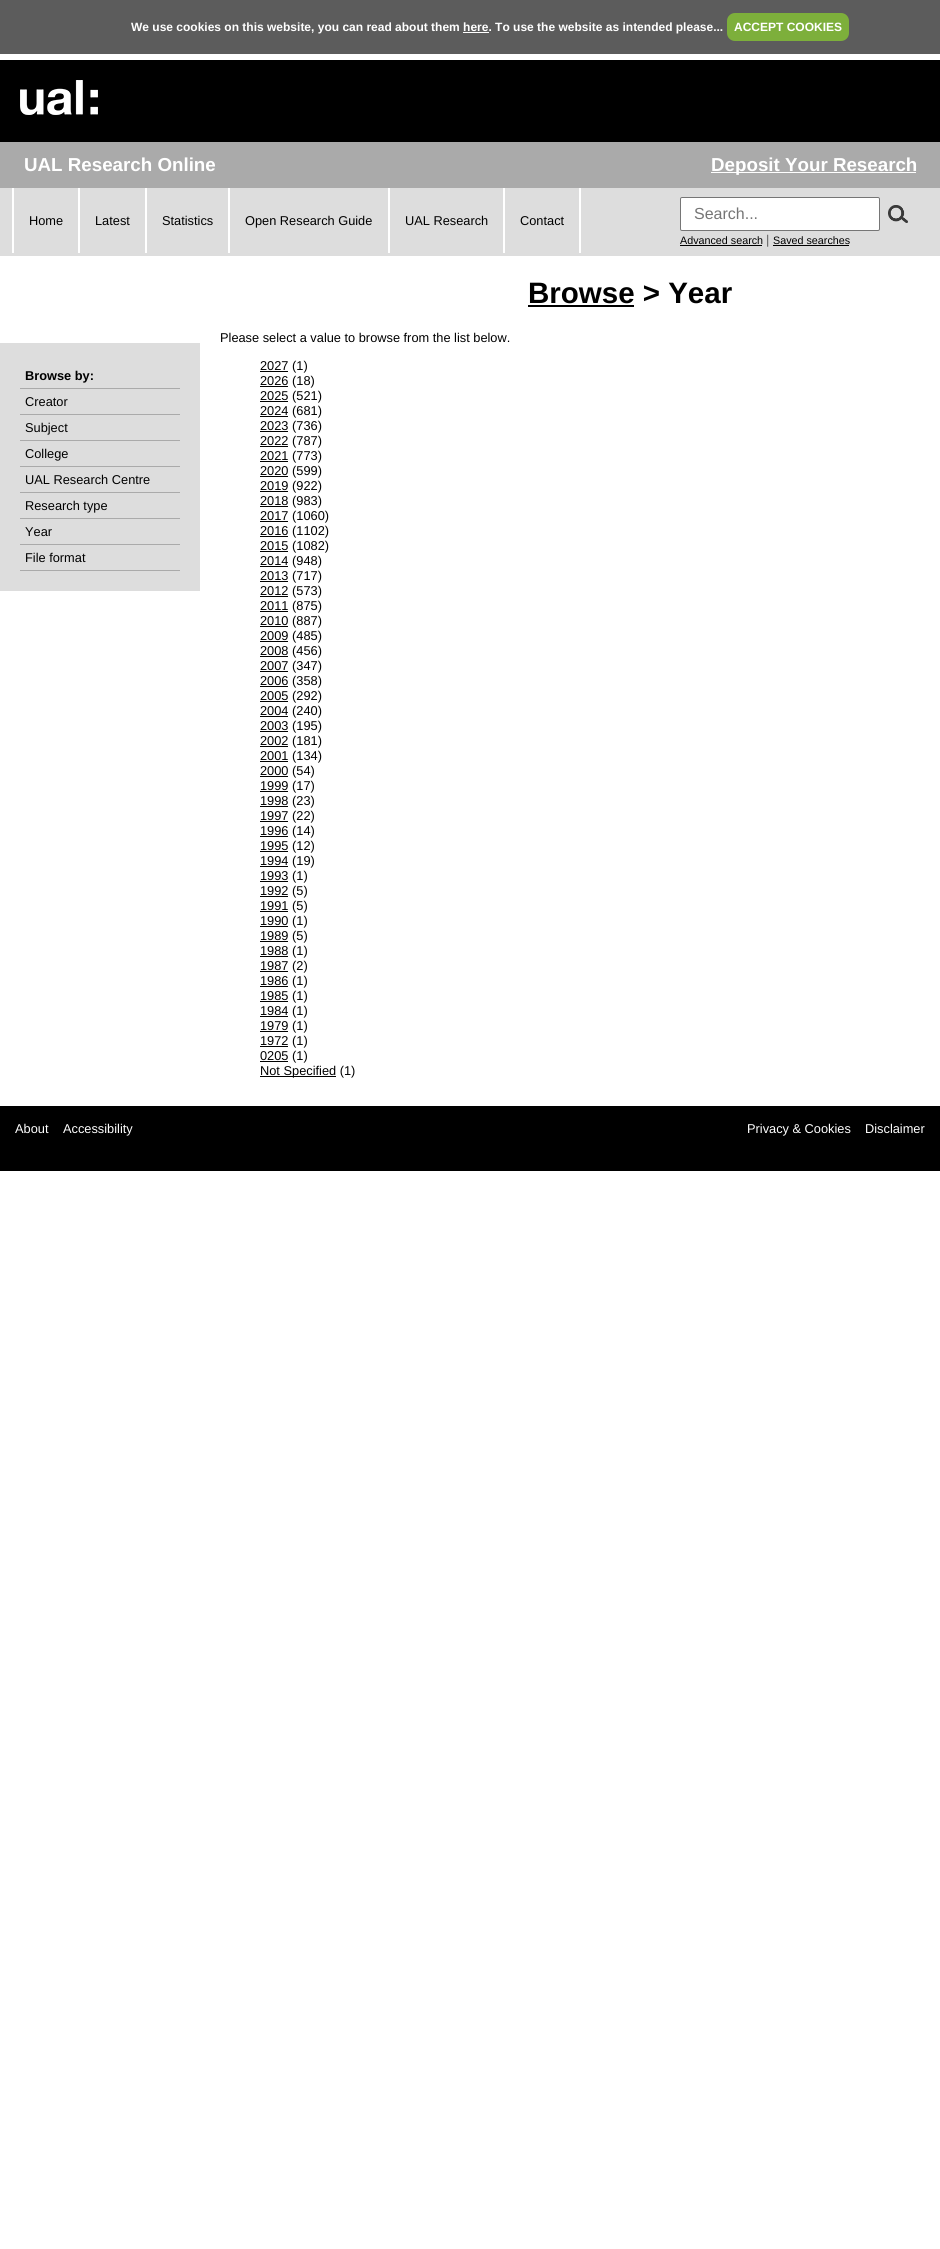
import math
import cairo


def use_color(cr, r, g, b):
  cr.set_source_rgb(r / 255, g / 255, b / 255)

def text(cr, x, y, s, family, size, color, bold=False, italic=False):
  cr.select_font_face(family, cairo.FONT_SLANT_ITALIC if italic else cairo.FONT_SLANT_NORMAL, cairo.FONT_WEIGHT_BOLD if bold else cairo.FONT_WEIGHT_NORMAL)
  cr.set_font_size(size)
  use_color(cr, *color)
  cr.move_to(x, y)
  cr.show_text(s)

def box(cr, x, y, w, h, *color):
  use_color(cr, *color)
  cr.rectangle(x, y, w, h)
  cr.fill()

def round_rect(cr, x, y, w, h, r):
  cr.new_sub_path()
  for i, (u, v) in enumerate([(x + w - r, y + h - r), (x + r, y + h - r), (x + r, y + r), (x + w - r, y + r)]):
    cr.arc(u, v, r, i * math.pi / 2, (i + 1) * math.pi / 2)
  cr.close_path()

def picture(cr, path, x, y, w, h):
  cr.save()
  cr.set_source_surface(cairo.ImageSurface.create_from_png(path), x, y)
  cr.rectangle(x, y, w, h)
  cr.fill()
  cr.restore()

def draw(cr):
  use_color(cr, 255, 255, 255)
  cr.paint()
  box(cr, 0, 0, 940, 54, 92, 92, 92)
  use_color(cr, 125, 175, 59)
  round_rect(cr, 727, 13, 122, 28, 8)
  cr.fill()
  box(cr, 463, 32, 26, 1, 255, 255, 255)
  box(cr, 0, 60, 940, 82, 0, 0, 0)
  picture(cr, "img_01.png", 20, 80, 78, 35)
  box(cr, 0, 142, 940, 46, 170, 170, 170)
  box(cr, 711, 172, 205, 1, 255, 255, 255)
  box(cr, 0, 188, 940, 68, 221, 221, 221)
  box(cr, 12, 188, 2, 65, 255, 255, 255)
  box(cr, 78, 188, 2, 65, 255, 255, 255)
  box(cr, 145, 188, 2, 65, 255, 255, 255)
  box(cr, 228, 188, 2, 65, 255, 255, 255)
  box(cr, 388, 188, 2, 65, 255, 255, 255)
  box(cr, 579, 188, 2, 65, 255, 255, 255)
  box(cr, 503, 188, 2, 65, 255, 255, 255)
  round_rect(cr, 680.5, 197.5, 199, 33, 1.5)
  cr.fill_preserve()
  use_color(cr, 118, 118, 118)
  cr.set_line_width(1)
  cr.stroke()
  picture(cr, "img_02.png", 888, 205, 20, 18)
  box(cr, 680, 245, 82, 1, 0, 0, 0)
  box(cr, 773, 245, 76, 1, 0, 0, 0)
  box(cr, 528, 305, 106, 2, 0, 0, 0)
  box(cr, 0, 343, 200, 248, 221, 221, 221)
  box(cr, 20, 388, 160, 1, 170, 170, 170)
  box(cr, 20, 414, 160, 1, 170, 170, 170)
  box(cr, 20, 440, 160, 1, 170, 170, 170)
  box(cr, 20, 466, 160, 1, 170, 170, 170)
  box(cr, 20, 492, 160, 1, 170, 170, 170)
  box(cr, 20, 518, 160, 1, 170, 170, 170)
  box(cr, 20, 544, 160, 1, 170, 170, 170)
  box(cr, 20, 570, 160, 1, 170, 170, 170)
  box(cr, 260, 371, 28, 1, 0, 0, 0)
  box(cr, 260, 386, 28, 1, 0, 0, 0)
  box(cr, 260, 401, 28, 1, 0, 0, 0)
  box(cr, 260, 416, 28, 1, 0, 0, 0)
  box(cr, 260, 431, 28, 1, 0, 0, 0)
  box(cr, 260, 446, 28, 1, 0, 0, 0)
  box(cr, 260, 461, 28, 1, 0, 0, 0)
  box(cr, 260, 476, 28, 1, 0, 0, 0)
  box(cr, 260, 491, 28, 1, 0, 0, 0)
  box(cr, 260, 506, 28, 1, 0, 0, 0)
  box(cr, 260, 521, 28, 1, 0, 0, 0)
  box(cr, 260, 536, 28, 1, 0, 0, 0)
  box(cr, 260, 551, 28, 1, 0, 0, 0)
  box(cr, 260, 566, 28, 1, 0, 0, 0)
  box(cr, 260, 581, 28, 1, 0, 0, 0)
  box(cr, 260, 596, 28, 1, 0, 0, 0)
  box(cr, 260, 611, 28, 1, 0, 0, 0)
  box(cr, 260, 626, 28, 1, 0, 0, 0)
  box(cr, 260, 641, 28, 1, 0, 0, 0)
  box(cr, 260, 656, 28, 1, 0, 0, 0)
  box(cr, 260, 671, 28, 1, 0, 0, 0)
  box(cr, 260, 686, 28, 1, 0, 0, 0)
  box(cr, 260, 701, 28, 1, 0, 0, 0)
  box(cr, 260, 716, 28, 1, 0, 0, 0)
  box(cr, 260, 731, 28, 1, 0, 0, 0)
  box(cr, 260, 746, 28, 1, 0, 0, 0)
  box(cr, 260, 761, 28, 1, 0, 0, 0)
  box(cr, 260, 776, 28, 1, 0, 0, 0)
  box(cr, 260, 791, 28, 1, 0, 0, 0)
  box(cr, 260, 806, 28, 1, 0, 0, 0)
  box(cr, 260, 821, 28, 1, 0, 0, 0)
  box(cr, 260, 836, 28, 1, 0, 0, 0)
  box(cr, 260, 851, 28, 1, 0, 0, 0)
  box(cr, 260, 866, 28, 1, 0, 0, 0)
  box(cr, 260, 881, 28, 1, 0, 0, 0)
  box(cr, 260, 896, 28, 1, 0, 0, 0)
  box(cr, 260, 911, 28, 1, 0, 0, 0)
  box(cr, 260, 926, 28, 1, 0, 0, 0)
  box(cr, 260, 941, 28, 1, 0, 0, 0)
  box(cr, 260, 956, 28, 1, 0, 0, 0)
  box(cr, 260, 971, 28, 1, 0, 0, 0)
  box(cr, 260, 986, 28, 1, 0, 0, 0)
  box(cr, 260, 1001, 28, 1, 0, 0, 0)
  box(cr, 260, 1016, 28, 1, 0, 0, 0)
  box(cr, 260, 1031, 28, 1, 0, 0, 0)
  box(cr, 260, 1046, 28, 1, 0, 0, 0)
  box(cr, 260, 1061, 28, 1, 0, 0, 0)
  box(cr, 260, 1076, 76, 1, 0, 0, 0)
  box(cr, 0, 1106, 940, 65, 0, 0, 0)
  text(cr, 131, 31, "We use cookies on this website, you can read about them here. To use the website as intended please...", "Liberation Sans", 12, (255, 255, 255), bold=True)
  text(cr, 734, 31, "ACCEPT COOKIES", "Liberation Sans", 12, (255, 255, 255), bold=True)
  text(cr, 24, 171, "UAL Research Online", "Liberation Sans", 18.75, (255, 255, 255), bold=True)
  text(cr, 711, 171, "Deposit Your Research", "Liberation Sans", 18.75, (255, 255, 255), bold=True)
  text(cr, 29, 225, "Home", "Liberation Sans", 12.8, (0, 0, 0))
  text(cr, 95, 225, "Latest", "Liberation Sans", 12.8, (0, 0, 0))
  text(cr, 162, 225, "Statistics", "Liberation Sans", 12.8, (0, 0, 0))
  text(cr, 245, 225, "Open Research Guide", "Liberation Sans", 12.8, (0, 0, 0))
  text(cr, 405, 225, "UAL Research", "Liberation Sans", 12.8, (0, 0, 0))
  text(cr, 520, 225, "Contact", "Liberation Sans", 12.8, (0, 0, 0))
  text(cr, 694, 219, "Search...", "Liberation Sans", 16, (117, 117, 117))
  text(cr, 680, 244, "Advanced search", "Liberation Sans", 10.75, (0, 0, 0))
  text(cr, 766, 244, "|", "Liberation Sans", 12.8, (96, 96, 96))
  text(cr, 773, 244, "Saved searches", "Liberation Sans", 10.75, (0, 0, 0))
  text(cr, 528, 303, "Browse > Year", "Liberation Sans", 29.5, (0, 0, 0), bold=True)
  text(cr, 25, 380, "Browse by:", "Liberation Sans", 12.8, (0, 0, 0), bold=True)
  text(cr, 25, 406, "Creator", "Liberation Sans", 12.8, (0, 0, 0))
  text(cr, 25, 432, "Subject", "Liberation Sans", 12.8, (0, 0, 0))
  text(cr, 25, 458, "College", "Liberation Sans", 12.8, (0, 0, 0))
  text(cr, 25, 484, "UAL Research Centre", "Liberation Sans", 12.8, (0, 0, 0))
  text(cr, 25, 510, "Research type", "Liberation Sans", 12.8, (0, 0, 0))
  text(cr, 25, 536, "Year", "Liberation Sans", 12.8, (0, 0, 0))
  text(cr, 25, 562, "File format", "Liberation Sans", 12.8, (0, 0, 0))
  text(cr, 220, 342, "Please select a value to browse from the list below.", "Liberation Sans", 12.8, (0, 0, 0))
  text(cr, 260, 370, "2027 (1)", "Liberation Sans", 12.8, (0, 0, 0))
  text(cr, 260, 385, "2026 (18)", "Liberation Sans", 12.8, (0, 0, 0))
  text(cr, 260, 400, "2025 (521)", "Liberation Sans", 12.8, (0, 0, 0))
  text(cr, 260, 415, "2024 (681)", "Liberation Sans", 12.8, (0, 0, 0))
  text(cr, 260, 430, "2023 (736)", "Liberation Sans", 12.8, (0, 0, 0))
  text(cr, 260, 445, "2022 (787)", "Liberation Sans", 12.8, (0, 0, 0))
  text(cr, 260, 460, "2021 (773)", "Liberation Sans", 12.8, (0, 0, 0))
  text(cr, 260, 475, "2020 (599)", "Liberation Sans", 12.8, (0, 0, 0))
  text(cr, 260, 490, "2019 (922)", "Liberation Sans", 12.8, (0, 0, 0))
  text(cr, 260, 505, "2018 (983)", "Liberation Sans", 12.8, (0, 0, 0))
  text(cr, 260, 520, "2017 (1060)", "Liberation Sans", 12.8, (0, 0, 0))
  text(cr, 260, 535, "2016 (1102)", "Liberation Sans", 12.8, (0, 0, 0))
  text(cr, 260, 550, "2015 (1082)", "Liberation Sans", 12.8, (0, 0, 0))
  text(cr, 260, 565, "2014 (948)", "Liberation Sans", 12.8, (0, 0, 0))
  text(cr, 260, 580, "2013 (717)", "Liberation Sans", 12.8, (0, 0, 0))
  text(cr, 260, 595, "2012 (573)", "Liberation Sans", 12.8, (0, 0, 0))
  text(cr, 260, 610, "2011 (875)", "Liberation Sans", 12.8, (0, 0, 0))
  text(cr, 260, 625, "2010 (887)", "Liberation Sans", 12.8, (0, 0, 0))
  text(cr, 260, 640, "2009 (485)", "Liberation Sans", 12.8, (0, 0, 0))
  text(cr, 260, 655, "2008 (456)", "Liberation Sans", 12.8, (0, 0, 0))
  text(cr, 260, 670, "2007 (347)", "Liberation Sans", 12.8, (0, 0, 0))
  text(cr, 260, 685, "2006 (358)", "Liberation Sans", 12.8, (0, 0, 0))
  text(cr, 260, 700, "2005 (292)", "Liberation Sans", 12.8, (0, 0, 0))
  text(cr, 260, 715, "2004 (240)", "Liberation Sans", 12.8, (0, 0, 0))
  text(cr, 260, 730, "2003 (195)", "Liberation Sans", 12.8, (0, 0, 0))
  text(cr, 260, 745, "2002 (181)", "Liberation Sans", 12.8, (0, 0, 0))
  text(cr, 260, 760, "2001 (134)", "Liberation Sans", 12.8, (0, 0, 0))
  text(cr, 260, 775, "2000 (54)", "Liberation Sans", 12.8, (0, 0, 0))
  text(cr, 260, 790, "1999 (17)", "Liberation Sans", 12.8, (0, 0, 0))
  text(cr, 260, 805, "1998 (23)", "Liberation Sans", 12.8, (0, 0, 0))
  text(cr, 260, 820, "1997 (22)", "Liberation Sans", 12.8, (0, 0, 0))
  text(cr, 260, 835, "1996 (14)", "Liberation Sans", 12.8, (0, 0, 0))
  text(cr, 260, 850, "1995 (12)", "Liberation Sans", 12.8, (0, 0, 0))
  text(cr, 260, 865, "1994 (19)", "Liberation Sans", 12.8, (0, 0, 0))
  text(cr, 260, 880, "1993 (1)", "Liberation Sans", 12.8, (0, 0, 0))
  text(cr, 260, 895, "1992 (5)", "Liberation Sans", 12.8, (0, 0, 0))
  text(cr, 260, 910, "1991 (5)", "Liberation Sans", 12.8, (0, 0, 0))
  text(cr, 260, 925, "1990 (1)", "Liberation Sans", 12.8, (0, 0, 0))
  text(cr, 260, 940, "1989 (5)", "Liberation Sans", 12.8, (0, 0, 0))
  text(cr, 260, 955, "1988 (1)", "Liberation Sans", 12.8, (0, 0, 0))
  text(cr, 260, 970, "1987 (2)", "Liberation Sans", 12.8, (0, 0, 0))
  text(cr, 260, 985, "1986 (1)", "Liberation Sans", 12.8, (0, 0, 0))
  text(cr, 260, 1000, "1985 (1)", "Liberation Sans", 12.8, (0, 0, 0))
  text(cr, 260, 1015, "1984 (1)", "Liberation Sans", 12.8, (0, 0, 0))
  text(cr, 260, 1030, "1979 (1)", "Liberation Sans", 12.8, (0, 0, 0))
  text(cr, 260, 1045, "1972 (1)", "Liberation Sans", 12.8, (0, 0, 0))
  text(cr, 260, 1060, "0205 (1)", "Liberation Sans", 12.8, (0, 0, 0))
  text(cr, 260, 1075, "Not Specified (1)", "Liberation Sans", 12.8, (0, 0, 0))
  text(cr, 15, 1133, "About", "Liberation Sans", 12.8, (255, 255, 255))
  text(cr, 63, 1133, "Accessibility", "Liberation Sans", 12.8, (255, 255, 255))
  text(cr, 747, 1133, "Privacy & Cookies", "Liberation Sans", 12.8, (255, 255, 255))
  text(cr, 865, 1133, "Disclaimer", "Liberation Sans", 12.8, (255, 255, 255))


surface = cairo.ImageSurface(cairo.FORMAT_RGB24, 940, 2249)
cr = cairo.Context(surface)
options = cairo.FontOptions()
options.set_hint_metrics(cairo.HINT_METRICS_OFF)
options.set_hint_style(cairo.HINT_STYLE_NONE)
cr.set_font_options(options)
cr.set_miter_limit(4)
draw(cr)
surface.write_to_png("out.png")
